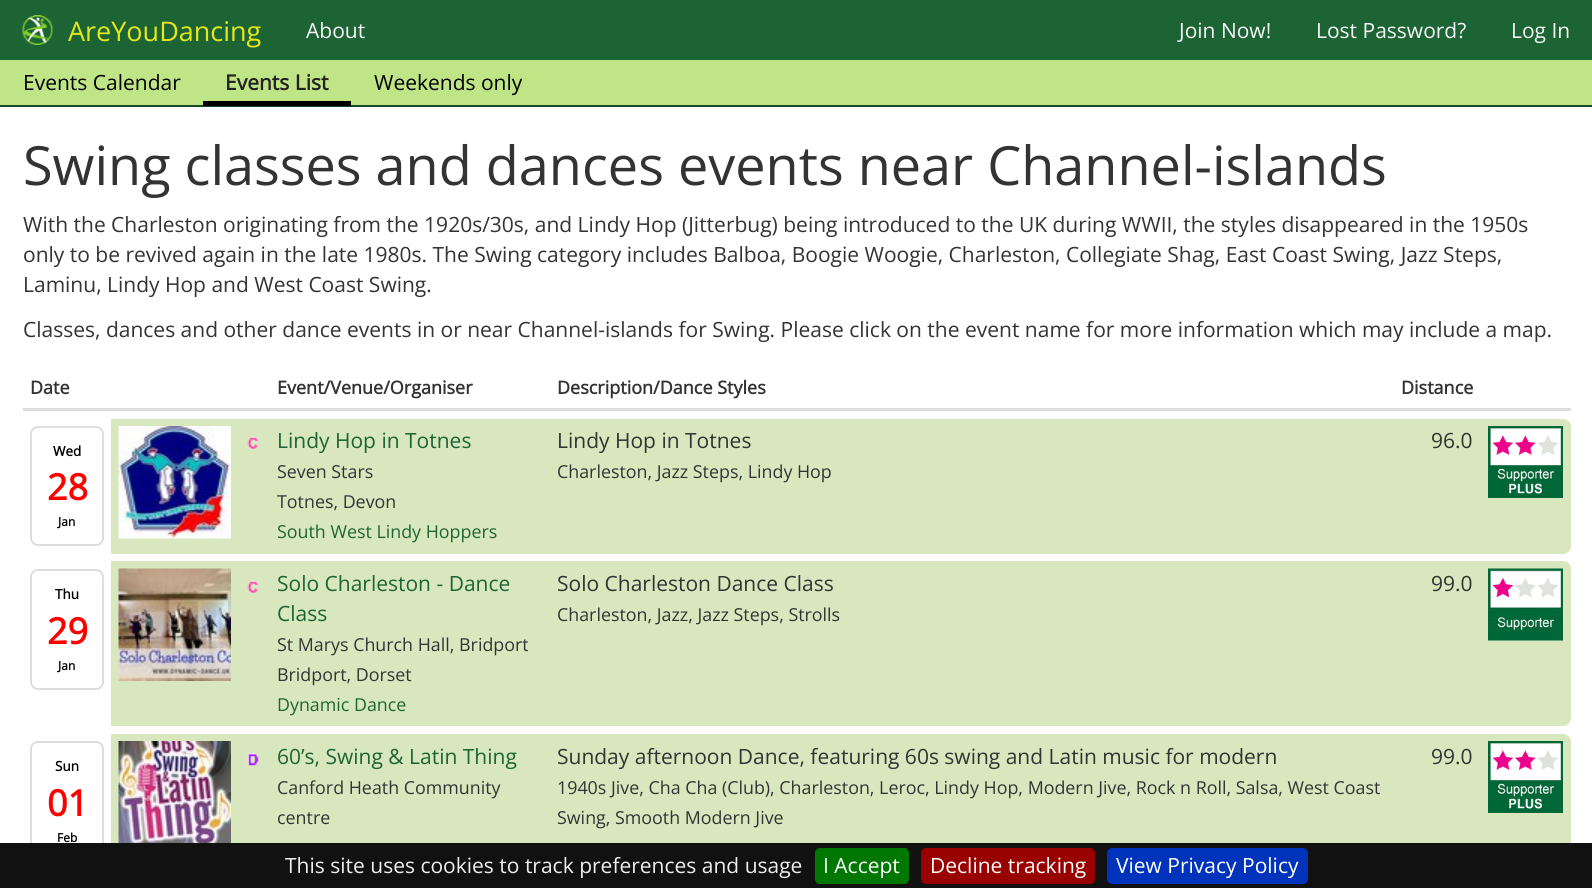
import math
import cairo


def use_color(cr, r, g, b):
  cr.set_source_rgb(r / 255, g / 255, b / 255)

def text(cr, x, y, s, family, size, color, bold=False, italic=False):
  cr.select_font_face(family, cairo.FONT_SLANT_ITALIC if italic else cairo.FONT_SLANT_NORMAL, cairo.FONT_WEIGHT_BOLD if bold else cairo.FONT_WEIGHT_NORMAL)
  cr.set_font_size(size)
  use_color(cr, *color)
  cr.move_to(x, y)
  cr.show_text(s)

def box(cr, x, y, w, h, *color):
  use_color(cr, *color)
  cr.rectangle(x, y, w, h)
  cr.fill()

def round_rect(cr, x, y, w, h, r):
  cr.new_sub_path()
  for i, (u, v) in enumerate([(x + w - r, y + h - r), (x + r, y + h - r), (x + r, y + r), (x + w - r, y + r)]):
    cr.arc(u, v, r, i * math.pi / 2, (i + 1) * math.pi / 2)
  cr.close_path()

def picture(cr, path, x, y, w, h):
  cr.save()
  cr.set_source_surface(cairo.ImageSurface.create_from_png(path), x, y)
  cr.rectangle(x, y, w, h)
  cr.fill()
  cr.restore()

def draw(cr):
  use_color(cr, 255, 255, 255)
  cr.paint()
  box(cr, 0, 0, 1592, 60, 29, 100, 52)
  box(cr, 0, 105, 1592, 2, 22, 74, 39)
  picture(cr, "img_01.png", 22, 15, 31, 30)
  box(cr, 0, 60, 1592, 45, 191, 229, 135)
  box(cr, 203, 101, 148, 5, 0, 0, 0)
  box(cr, 23, 408, 1548, 3, 221, 221, 221)
  use_color(cr, 216, 231, 190)
  round_rect(cr, 23, 419, 1548, 135, 8)
  cr.fill()
  picture(cr, "img_02.png", 118, 426, 113, 113)
  picture(cr, "img_03.png", 247, 436, 12, 13)
  picture(cr, "img_04.png", 1488, 426, 75, 72)
  box(cr, 23, 419, 88, 135, 255, 255, 255)
  round_rect(cr, 31, 427, 72, 118, 7)
  use_color(cr, 221, 221, 221)
  cr.stroke()
  use_color(cr, 216, 231, 190)
  round_rect(cr, 23, 561, 1548, 165, 8)
  cr.fill()
  picture(cr, "img_05.png", 118, 568, 113, 113)
  picture(cr, "img_03.png", 247, 580, 12, 13)
  picture(cr, "img_06.png", 1488, 568, 75, 73)
  box(cr, 23, 561, 88, 165, 255, 255, 255)
  round_rect(cr, 31, 570, 72, 119, 7)
  use_color(cr, 221, 221, 221)
  cr.stroke()
  use_color(cr, 216, 231, 190)
  round_rect(cr, 23, 734, 1548, 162, 8)
  cr.fill()
  picture(cr, "img_07.png", 118, 741, 113, 102)
  picture(cr, "img_08.png", 247, 752, 12, 14)
  picture(cr, "img_04.png", 1488, 741, 75, 72)
  box(cr, 23, 734, 88, 109, 255, 255, 255)
  round_rect(cr, 31, 742, 72, 120, 7)
  use_color(cr, 221, 221, 221)
  cr.stroke()
  box(cr, 0, 843, 1592, 45, 17, 17, 17)
  use_color(cr, 0, 119, 0)
  round_rect(cr, 815, 848, 94, 36, 5)
  cr.fill()
  use_color(cr, 153, 0, 0)
  round_rect(cr, 921, 848, 174, 36, 5)
  cr.fill()
  use_color(cr, 0, 51, 187)
  round_rect(cr, 1107, 848, 201, 36, 5)
  cr.fill()
  text(cr, 68, 41, "AreYouDancing", "Open Sans", 27, (228, 232, 26))
  text(cr, 306, 38, "About", "Open Sans", 21, (245, 245, 245))
  text(cr, 1179, 38, "Join Now!", "Open Sans", 21, (245, 245, 245))
  text(cr, 1316, 38, "Lost Password?", "Open Sans", 21, (245, 245, 245))
  text(cr, 1511, 38, "Log In", "Open Sans", 21, (245, 245, 245))
  text(cr, 23, 90, "Events Calendar", "Open Sans", 21, (0, 0, 0))
  text(cr, 225, 90, "Events List", "Open Sans", 21, (34, 34, 34), bold=True)
  text(cr, 374, 90, "Weekends only", "Open Sans", 21, (0, 0, 0))
  text(cr, 23, 185, "Swing classes and dances events near Channel-islands", "Open Sans", 54, (51, 51, 51))
  text(cr, 23, 232, "With the Charleston originating from the 1920s/30s, and Lindy Hop (Jitterbug) being introduced to the UK during WWII, the styles disappeared in the 1950s", "Open Sans", 21, (51, 51, 51))
  text(cr, 23, 262, "only to be revived again in the late 1980s. The Swing category includes Balboa, Boogie Woogie, Charleston, Collegiate Shag, East Coast Swing, Jazz Steps,", "Open Sans", 21, (51, 51, 51))
  text(cr, 23, 292, "Laminu, Lindy Hop and West Coast Swing.", "Open Sans", 21, (51, 51, 51))
  text(cr, 23, 337, "Classes, dances and other dance events in or near Channel-islands for Swing. Please click on the event name for more information which may include a map.", "Open Sans", 21, (51, 51, 51))
  text(cr, 30, 394, "Date", "Open Sans", 18, (51, 51, 51), bold=True)
  text(cr, 277, 394, "Event/Venue/Organiser", "Open Sans", 18, (51, 51, 51), bold=True)
  text(cr, 557, 394, "Description/Dance Styles", "Open Sans", 18, (51, 51, 51), bold=True)
  text(cr, 1401, 394, "Distance", "Open Sans", 18, (51, 51, 51), bold=True)
  text(cr, 277, 448, "Lindy Hop in Totnes", "Open Sans", 21, (29, 100, 52))
  text(cr, 277, 478, "Seven Stars", "Open Sans", 17.85, (51, 51, 51))
  text(cr, 277, 508, "Totnes, Devon", "Open Sans", 17.85, (51, 51, 51))
  text(cr, 277, 538, "South West Lindy Hoppers", "Open Sans", 17.85, (29, 100, 52))
  text(cr, 557, 448, "Lindy Hop in Totnes", "Open Sans", 21, (51, 51, 51))
  text(cr, 557, 478, "Charleston, Jazz Steps, Lindy Hop", "Open Sans", 17.85, (51, 51, 51))
  text(cr, 1431, 448, "96.0", "Open Sans", 21, (51, 51, 51))
  text(cr, 53, 456, "Wed", "Open Sans", 13.5, (0, 0, 0), bold=True)
  text(cr, 47, 500, "28", "Open Sans", 36, (255, 0, 0), bold=True)
  text(cr, 58, 526, "Jan", "Open Sans", 12, (0, 0, 0), bold=True)
  text(cr, 277, 591, "Solo Charleston - Dance", "Open Sans", 21, (29, 100, 52))
  text(cr, 277, 621, "Class", "Open Sans", 21, (29, 100, 52))
  text(cr, 277, 651, "St Marys Church Hall, Bridport", "Open Sans", 17.85, (51, 51, 51))
  text(cr, 277, 681, "Bridport, Dorset", "Open Sans", 17.85, (51, 51, 51))
  text(cr, 277, 711, "Dynamic Dance", "Open Sans", 17.85, (29, 100, 52))
  text(cr, 557, 591, "Solo Charleston Dance Class", "Open Sans", 21, (51, 51, 51))
  text(cr, 557, 621, "Charleston, Jazz, Jazz Steps, Strolls", "Open Sans", 17.85, (51, 51, 51))
  text(cr, 1431, 591, "99.0", "Open Sans", 21, (51, 51, 51))
  text(cr, 55, 599, "Thu", "Open Sans", 13.5, (0, 0, 0), bold=True)
  text(cr, 47, 644, "29", "Open Sans", 36, (255, 0, 0), bold=True)
  text(cr, 58, 670, "Jan", "Open Sans", 12, (0, 0, 0), bold=True)
  text(cr, 277, 764, "60’s, Swing & Latin Thing", "Open Sans", 21, (29, 100, 52))
  text(cr, 277, 794, "Canford Heath Community", "Open Sans", 17.85, (51, 51, 51))
  text(cr, 277, 824, "centre", "Open Sans", 17.85, (51, 51, 51))
  text(cr, 557, 764, "Sunday afternoon Dance, featuring 60s swing and Latin music for modern", "Open Sans", 21, (51, 51, 51))
  text(cr, 557, 794, "1940s Jive, Cha Cha (Club), Charleston, Leroc, Lindy Hop, Modern Jive, Rock n Roll, Salsa, West Coast", "Open Sans", 17.85, (51, 51, 51))
  text(cr, 557, 824, "Swing, Smooth Modern Jive", "Open Sans", 17.85, (51, 51, 51))
  text(cr, 1431, 764, "99.0", "Open Sans", 21, (51, 51, 51))
  text(cr, 55, 771, "Sun", "Open Sans", 13.5, (0, 0, 0), bold=True)
  text(cr, 47, 816, "01", "Open Sans", 36, (255, 0, 0), bold=True)
  text(cr, 57, 842, "Feb", "Open Sans", 12, (0, 0, 0), bold=True)
  text(cr, 285, 873, "This site uses cookies to track preferences and usage", "Open Sans", 21, (238, 238, 238))
  text(cr, 823, 873, "I Accept", "Open Sans", 21, (255, 255, 255))
  text(cr, 930, 873, "Decline tracking", "Open Sans", 21, (255, 255, 255))
  text(cr, 1116, 873, "View Privacy Policy", "Open Sans", 21, (255, 255, 255))


surface = cairo.ImageSurface(cairo.FORMAT_RGB24, 1592, 888)
cr = cairo.Context(surface)
options = cairo.FontOptions()
options.set_hint_metrics(cairo.HINT_METRICS_OFF)
options.set_hint_style(cairo.HINT_STYLE_NONE)
cr.set_font_options(options)
cr.set_miter_limit(4)
draw(cr)
surface.write_to_png("out.png")
